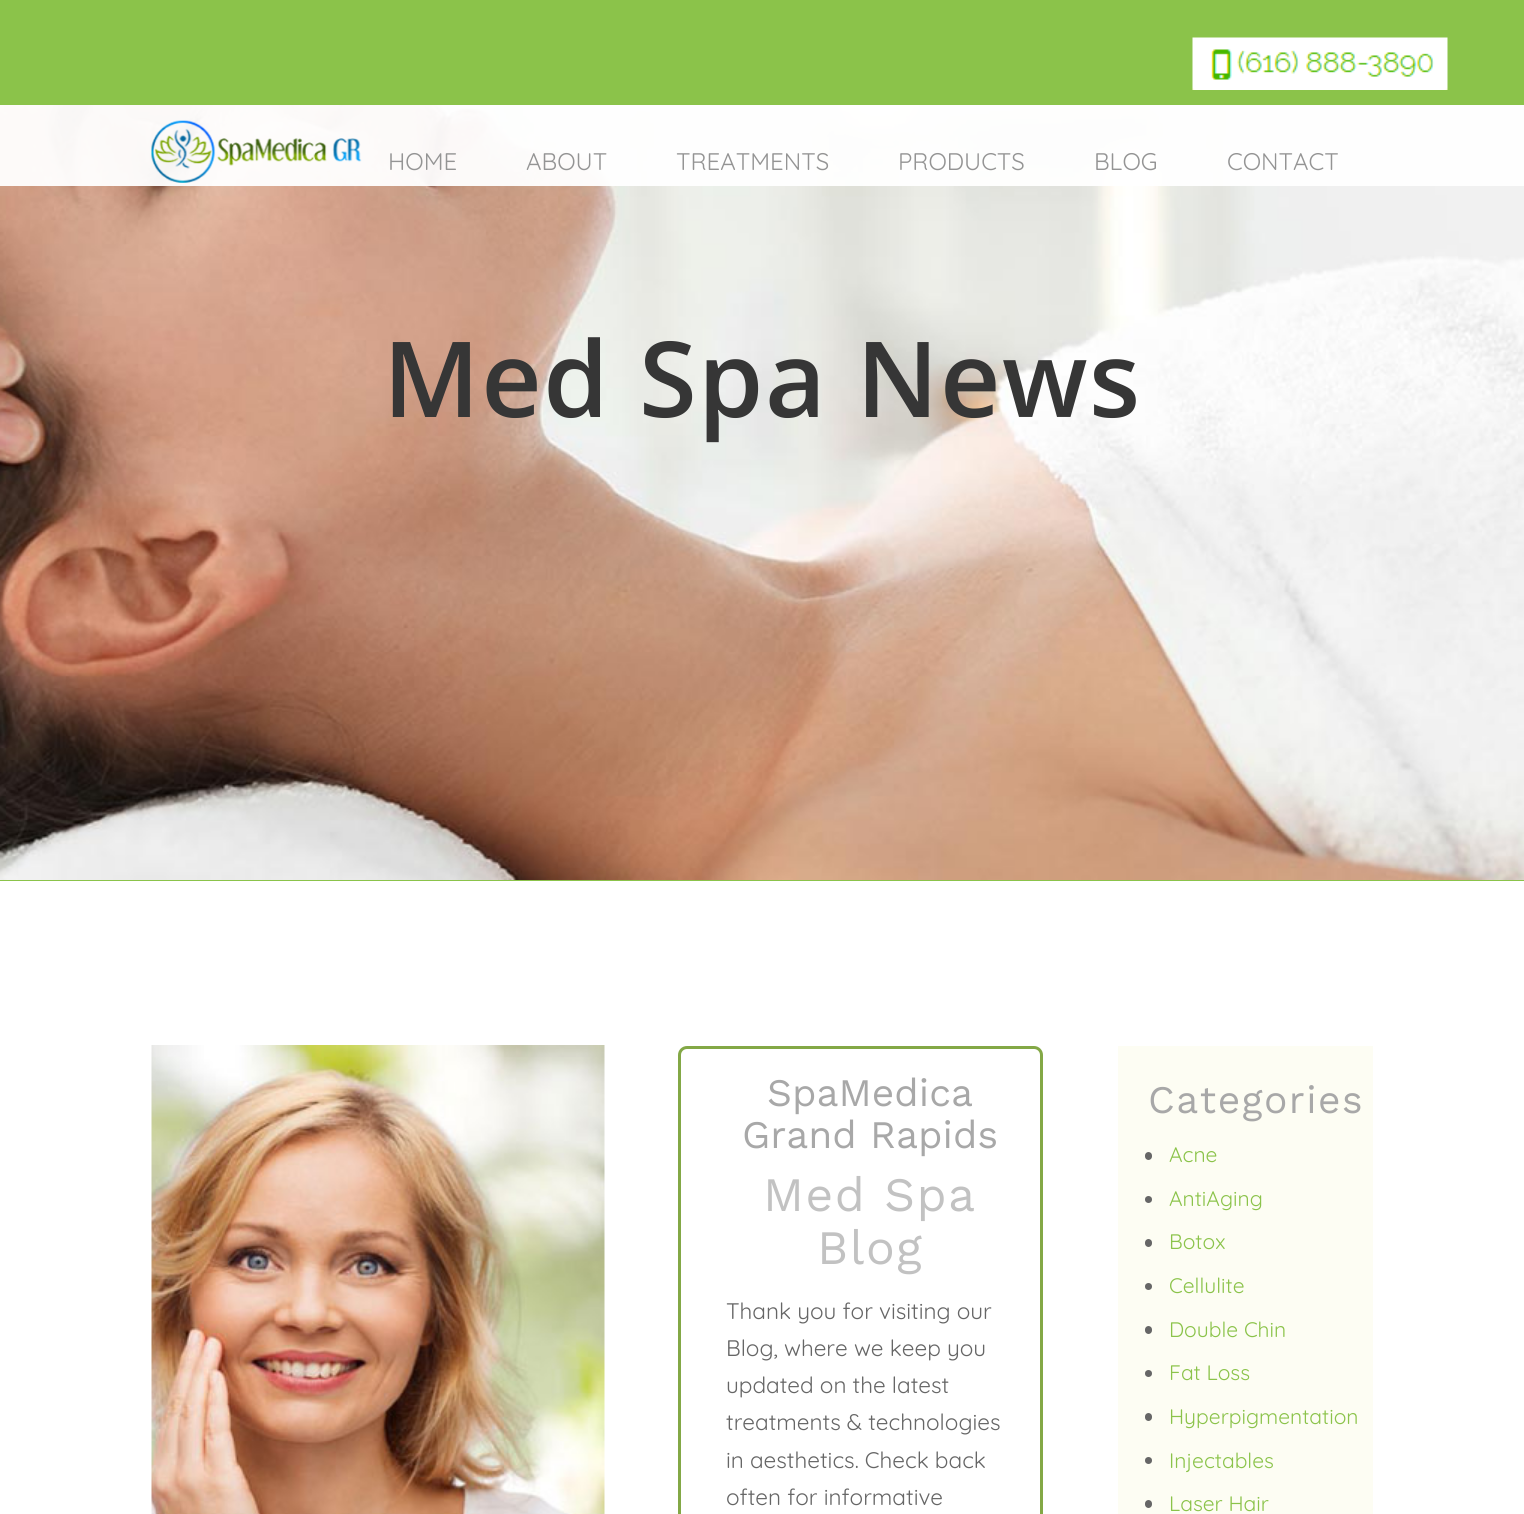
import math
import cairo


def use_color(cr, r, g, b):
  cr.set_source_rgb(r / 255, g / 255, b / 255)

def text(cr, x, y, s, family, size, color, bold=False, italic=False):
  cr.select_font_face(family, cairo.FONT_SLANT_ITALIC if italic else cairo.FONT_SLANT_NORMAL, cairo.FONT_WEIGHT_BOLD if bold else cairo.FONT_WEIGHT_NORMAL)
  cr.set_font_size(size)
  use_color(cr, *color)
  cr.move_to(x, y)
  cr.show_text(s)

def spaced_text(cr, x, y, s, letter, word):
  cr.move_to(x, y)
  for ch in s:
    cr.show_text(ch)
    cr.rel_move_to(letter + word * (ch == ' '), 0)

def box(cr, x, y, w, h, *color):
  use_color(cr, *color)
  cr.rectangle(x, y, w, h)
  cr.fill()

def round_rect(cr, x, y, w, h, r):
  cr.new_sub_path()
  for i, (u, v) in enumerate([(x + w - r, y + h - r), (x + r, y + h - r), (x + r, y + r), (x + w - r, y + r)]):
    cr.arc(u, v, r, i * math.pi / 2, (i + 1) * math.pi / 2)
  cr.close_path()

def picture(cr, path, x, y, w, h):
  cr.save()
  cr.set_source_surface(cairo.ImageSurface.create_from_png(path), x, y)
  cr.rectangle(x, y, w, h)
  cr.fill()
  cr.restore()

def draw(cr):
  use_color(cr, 255, 255, 255)
  cr.paint()
  box(cr, 0, 0, 1524, 105, 139, 195, 74)
  picture(cr, "img_01.png", 1192, 37, 256, 53)
  picture(cr, "img_03.png", 0, 105, 1524, 775)
  cr.set_source_rgba(1, 1, 1, 0.95)
  cr.rectangle(0, 105, 1524, 81)
  cr.fill()
  picture(cr, "img_02.png", 151, 120, 211, 63)
  box(cr, 0, 880, 1524, 1, 139, 195, 74)
  picture(cr, "img_04.png", 151, 1045, 454, 469)
  round_rect(cr, 679.5, 1047.5, 362, 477, 7.5)
  use_color(cr, 131, 168, 70)
  cr.set_line_width(3)
  cr.stroke()
  box(cr, 1118, 1046, 255, 468, 253, 253, 243)
  use_color(cr, 102, 102, 102)
  round_rect(cr, 1145, 1152, 7, 8, 3.5)
  cr.fill()
  cr.arc(1148.5, 1199.5, 3.5, 0, 2 * math.pi)
  cr.fill()
  round_rect(cr, 1145, 1239, 7, 8, 3.5)
  cr.fill()
  cr.arc(1148.5, 1286.5, 3.5, 0, 2 * math.pi)
  cr.fill()
  round_rect(cr, 1145, 1326, 7, 8, 3.5)
  cr.fill()
  cr.arc(1148.5, 1373.5, 3.5, 0, 2 * math.pi)
  cr.fill()
  round_rect(cr, 1145, 1413, 7, 8, 3.5)
  cr.fill()
  cr.arc(1148.5, 1460.5, 3.5, 0, 2 * math.pi)
  cr.fill()
  round_rect(cr, 1145, 1500, 7, 8, 3.5)
  cr.fill()
  text(cr, 388, 170, "HOME", "Quicksand Light", 24, (148, 148, 148))
  text(cr, 526, 170, "ABOUT", "Quicksand Light", 24, (148, 148, 148))
  text(cr, 676, 170, "TREATMENTS", "Quicksand Light", 24, (148, 148, 148))
  text(cr, 898, 170, "PRODUCTS", "Quicksand Light", 24, (148, 148, 148))
  text(cr, 1094, 170, "BLOG", "Quicksand Light", 24, (148, 148, 148))
  text(cr, 1227, 170, "CONTACT", "Quicksand Light", 24, (148, 148, 148))
  cr.select_font_face("Open Sans SemiBold")
  cr.set_font_size(105)
  use_color(cr, 54, 54, 54)
  spaced_text(cr, 383, 417, "Med Spa News", 1.5, 0)
  text(cr, 767, 1106, "SpaMedica", "Work Sans", 39, (168, 168, 168))
  text(cr, 742, 1148, "Grand Rapids", "Work Sans", 39, (168, 168, 168))
  cr.set_font_size(48)
  use_color(cr, 194, 194, 194)
  spaced_text(cr, 763, 1211, "Med Spa", 1.5, 0)
  spaced_text(cr, 817, 1264, "Blog", 1.5, 0)
  text(cr, 726, 1319, "Thank you for visiting our", "Quicksand Light", 22.5, (102, 102, 102))
  text(cr, 726, 1356, "Blog, where we keep you", "Quicksand Light", 22.5, (102, 102, 102))
  text(cr, 726, 1393, "updated on the latest", "Quicksand Light", 22.5, (102, 102, 102))
  text(cr, 726, 1430, "treatments & technologies", "Quicksand Light", 22.5, (102, 102, 102))
  text(cr, 726, 1468, "in aesthetics. Check back", "Quicksand Light", 22.5, (102, 102, 102))
  text(cr, 726, 1505, "often for informative", "Quicksand Light", 22.5, (102, 102, 102))
  cr.select_font_face("Work Sans")
  cr.set_font_size(39)
  use_color(cr, 168, 168, 168)
  spaced_text(cr, 1148, 1113, "Categories", 1.5, 0)
  text(cr, 1169, 1162, "Acne", "Quicksand Light", 21, (139, 195, 74))
  text(cr, 1169, 1206, "AntiAging", "Quicksand Light", 21, (139, 195, 74))
  text(cr, 1169, 1249, "Botox", "Quicksand Light", 21, (139, 195, 74))
  text(cr, 1169, 1293, "Cellulite", "Quicksand Light", 21, (139, 195, 74))
  text(cr, 1169, 1337, "Double Chin", "Quicksand Light", 21, (139, 195, 74))
  text(cr, 1169, 1380, "Fat Loss", "Quicksand Light", 21, (139, 195, 74))
  text(cr, 1169, 1424, "Hyperpigmentation", "Quicksand Light", 21, (139, 195, 74))
  text(cr, 1169, 1468, "Injectables", "Quicksand Light", 21, (139, 195, 74))
  text(cr, 1169, 1511, "Laser Hair", "Quicksand Light", 21, (139, 195, 74))


surface = cairo.ImageSurface(cairo.FORMAT_RGB24, 1524, 1514)
cr = cairo.Context(surface)
options = cairo.FontOptions()
options.set_hint_metrics(cairo.HINT_METRICS_OFF)
options.set_hint_style(cairo.HINT_STYLE_NONE)
cr.set_font_options(options)
cr.set_miter_limit(4)
draw(cr)
surface.write_to_png("out.png")
